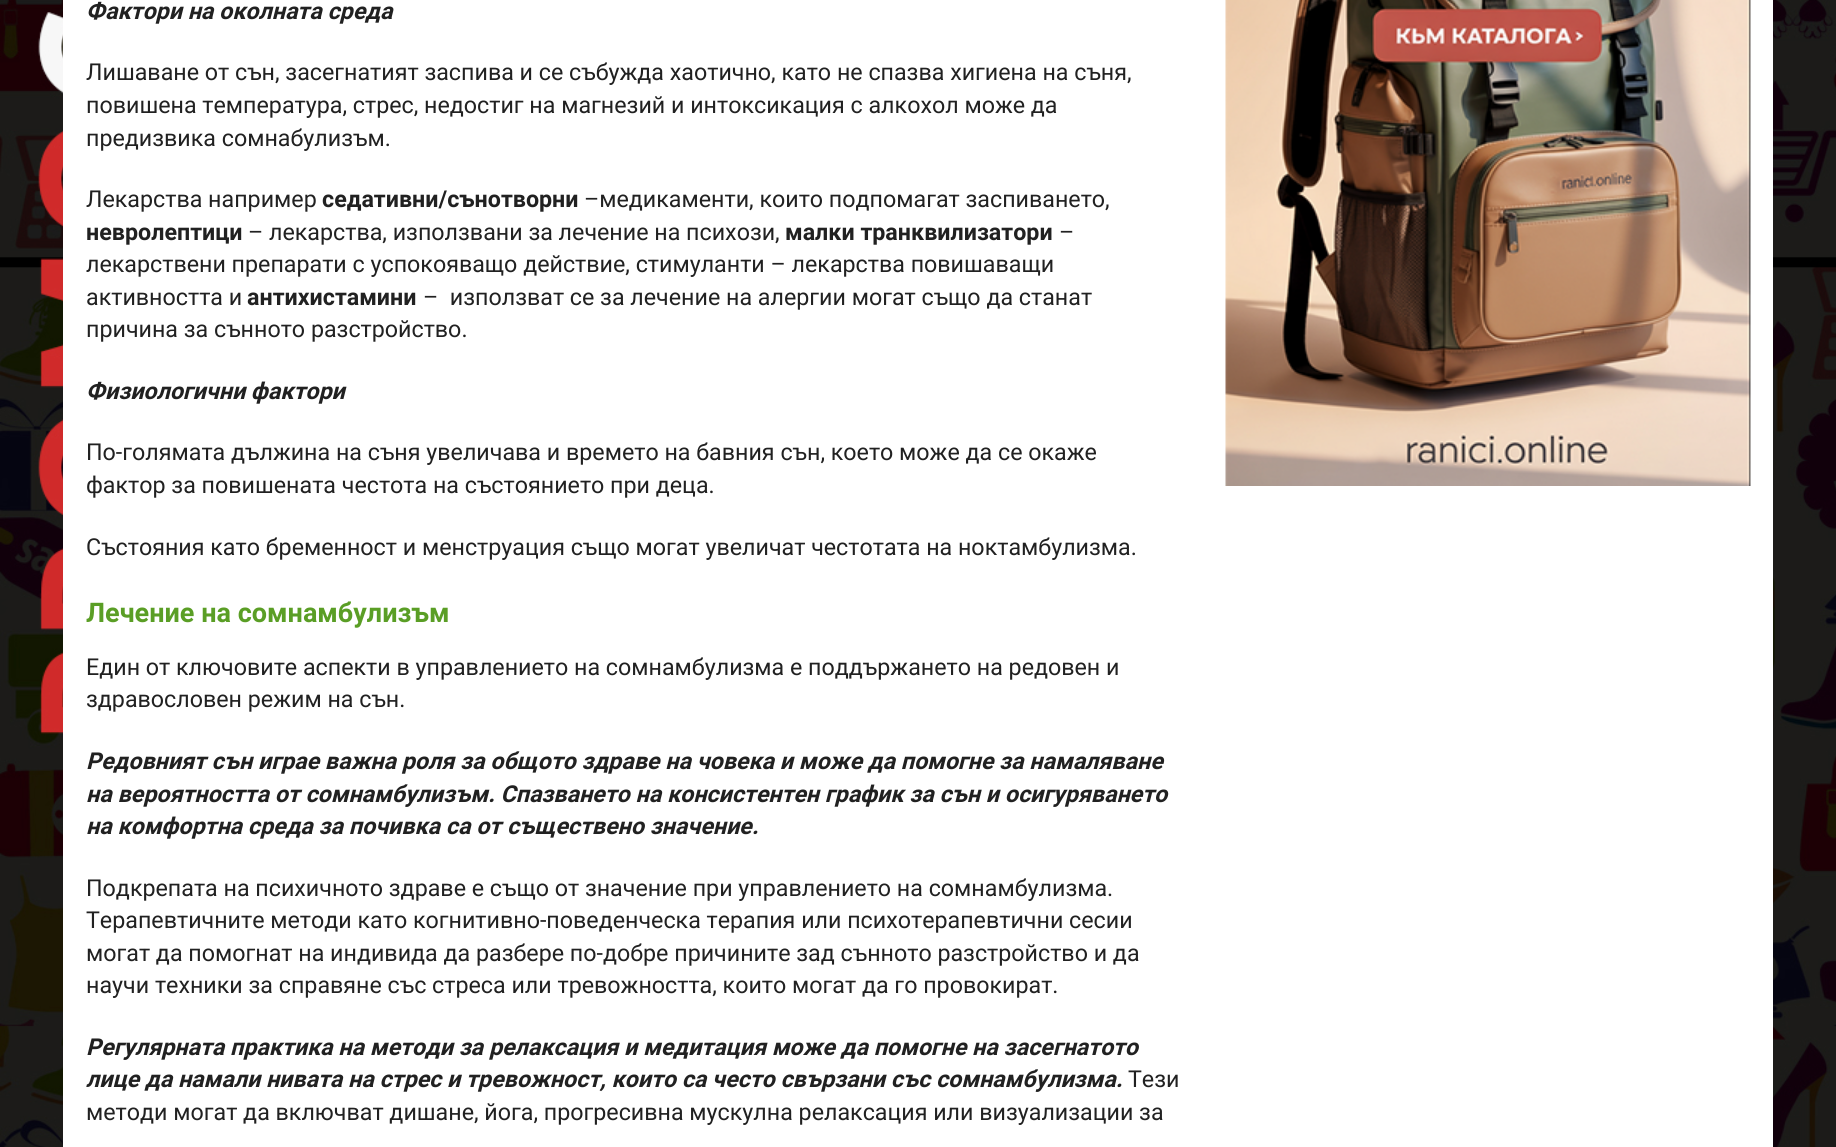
import math
import cairo


def use_color(cr, r, g, b):
  cr.set_source_rgb(r / 255, g / 255, b / 255)

def text(cr, x, y, s, family, size, color, bold=False, italic=False):
  cr.select_font_face(family, cairo.FONT_SLANT_ITALIC if italic else cairo.FONT_SLANT_NORMAL, cairo.FONT_WEIGHT_BOLD if bold else cairo.FONT_WEIGHT_NORMAL)
  cr.set_font_size(size)
  use_color(cr, *color)
  cr.move_to(x, y)
  cr.show_text(s)

def box(cr, x, y, w, h, *color):
  use_color(cr, *color)
  cr.rectangle(x, y, w, h)
  cr.fill()

def picture(cr, path, x, y, w, h):
  cr.save()
  cr.set_source_surface(cairo.ImageSurface.create_from_png(path), x, y)
  cr.rectangle(x, y, w, h)
  cr.fill()
  cr.restore()

def draw(cr):
  use_color(cr, 255, 255, 255)
  cr.paint()
  picture(cr, "img_01.png", 0, 0, 1836, 1147)
  box(cr, 63, 0, 1710, 1147, 255, 255, 255)
  picture(cr, "img_02.png", 1225, 0, 526, 486)
  text(cr, 86, 19, "Фактори на околната среда", "Roboto", 23.25, (33, 33, 33), bold=True, italic=True)
  text(cr, 86, 80, "Лишаване от сън, засегнатият заспива и се събужда хаотично, като не спазва хигиена на съня,", "Roboto", 23.25, (33, 33, 33))
  text(cr, 86, 113, "повишена температура, стрес, недостиг на магнезий и интоксикация с алкохол може да", "Roboto", 23.25, (33, 33, 33))
  text(cr, 86, 146, "предизвика сомнабулизъм.", "Roboto", 23.25, (33, 33, 33))
  text(cr, 86, 207, "Лекарства например", "Roboto", 23.25, (33, 33, 33))
  text(cr, 322, 207, "седативни/сънотворни", "Roboto", 23.25, (33, 33, 33), bold=True)
  text(cr, 584, 207, "–медикаменти, които подпомагат заспиването,", "Roboto", 23.25, (33, 33, 33))
  text(cr, 86, 240, "невролептици", "Roboto", 23.25, (33, 33, 33), bold=True)
  text(cr, 248, 240, "– лекарства, използвани за лечение на психози,", "Roboto", 23.25, (33, 33, 33))
  text(cr, 785, 240, "малки транквилизатори", "Roboto", 23.25, (33, 33, 33), bold=True)
  text(cr, 1059, 240, "–", "Roboto", 23.25, (33, 33, 33))
  text(cr, 86, 272, "лекарствени препарати с успокояващо действие, стимуланти – лекарства повишаващи", "Roboto", 23.25, (33, 33, 33))
  text(cr, 86, 305, "активността и", "Roboto", 23.25, (33, 33, 33))
  text(cr, 247, 305, "антихистамини", "Roboto", 23.25, (33, 33, 33), bold=True)
  text(cr, 423, 305, "–  използват се за лечение на алергии могат също да станат", "Roboto", 23.25, (33, 33, 33))
  text(cr, 86, 337, "причина за сънното разстройство.", "Roboto", 23.25, (33, 33, 33))
  text(cr, 86, 399, "Физиологични фактори", "Roboto", 23.25, (33, 33, 33), bold=True, italic=True)
  text(cr, 86, 460, "По-голямата дължина на съня увеличава и времето на бавния сън, което може да се окаже", "Roboto", 23.25, (33, 33, 33))
  text(cr, 86, 493, "фактор за повишената честота на състоянието при деца.", "Roboto", 23.25, (33, 33, 33))
  text(cr, 86, 555, "Състояния като бременност и менструация също могат увеличат честотата на ноктамбулизма.", "Roboto", 23.25, (33, 33, 33))
  text(cr, 86, 622, "Лечение на сомнамбулизъм", "Roboto", 27, (90, 158, 37), bold=True)
  text(cr, 86, 675, "Един от ключовите аспекти в управлението на сомнамбулизма е поддържането на редовен и", "Roboto", 23.25, (33, 33, 33))
  text(cr, 86, 707, "здравословен режим на сън.", "Roboto", 23.25, (33, 33, 33))
  text(cr, 86, 769, "Редовният сън играе важна роля за общото здраве на човека и може да помогне за намаляване", "Roboto", 23.25, (33, 33, 33), bold=True, italic=True)
  text(cr, 86, 802, "на вероятността от сомнамбулизъм. Спазването на консистентен график за сън и осигуряването", "Roboto", 23.25, (33, 33, 33), bold=True, italic=True)
  text(cr, 86, 834, "на комфортна среда за почивка са от съществено значение.", "Roboto", 23.25, (33, 33, 33), bold=True, italic=True)
  text(cr, 86, 896, "Подкрепата на психичното здраве е също от значение при управлението на сомнамбулизма.", "Roboto", 23.25, (33, 33, 33))
  text(cr, 86, 928, "Терапевтичните методи като когнитивно-поведенческа терапия или психотерапевтични сесии", "Roboto", 23.25, (33, 33, 33))
  text(cr, 86, 961, "могат да помогнат на индивида да разбере по-добре причините зад сънното разстройство и да", "Roboto", 23.25, (33, 33, 33))
  text(cr, 86, 993, "научи техники за справяне със стреса или тревожността, които могат да го провокират.", "Roboto", 23.25, (33, 33, 33))
  text(cr, 86, 1055, "Регулярната практика на методи за релаксация и медитация може да помогне на засегнатото", "Roboto", 23.25, (33, 33, 33), bold=True, italic=True)
  text(cr, 86, 1087, "лице да намали нивата на стрес и тревожност, които са често свързани със сомнамбулизма.", "Roboto", 23.25, (33, 33, 33), bold=True, italic=True)
  text(cr, 1128, 1087, "Тези", "Roboto", 23.25, (33, 33, 33))
  text(cr, 86, 1120, "методи могат да включват дишане, йога, прогресивна мускулна релаксация или визуализации за", "Roboto", 23.25, (33, 33, 33))


surface = cairo.ImageSurface(cairo.FORMAT_RGB24, 1836, 1147)
cr = cairo.Context(surface)
options = cairo.FontOptions()
options.set_hint_metrics(cairo.HINT_METRICS_OFF)
options.set_hint_style(cairo.HINT_STYLE_NONE)
cr.set_font_options(options)
cr.set_miter_limit(4)
draw(cr)
surface.write_to_png("out.png")
